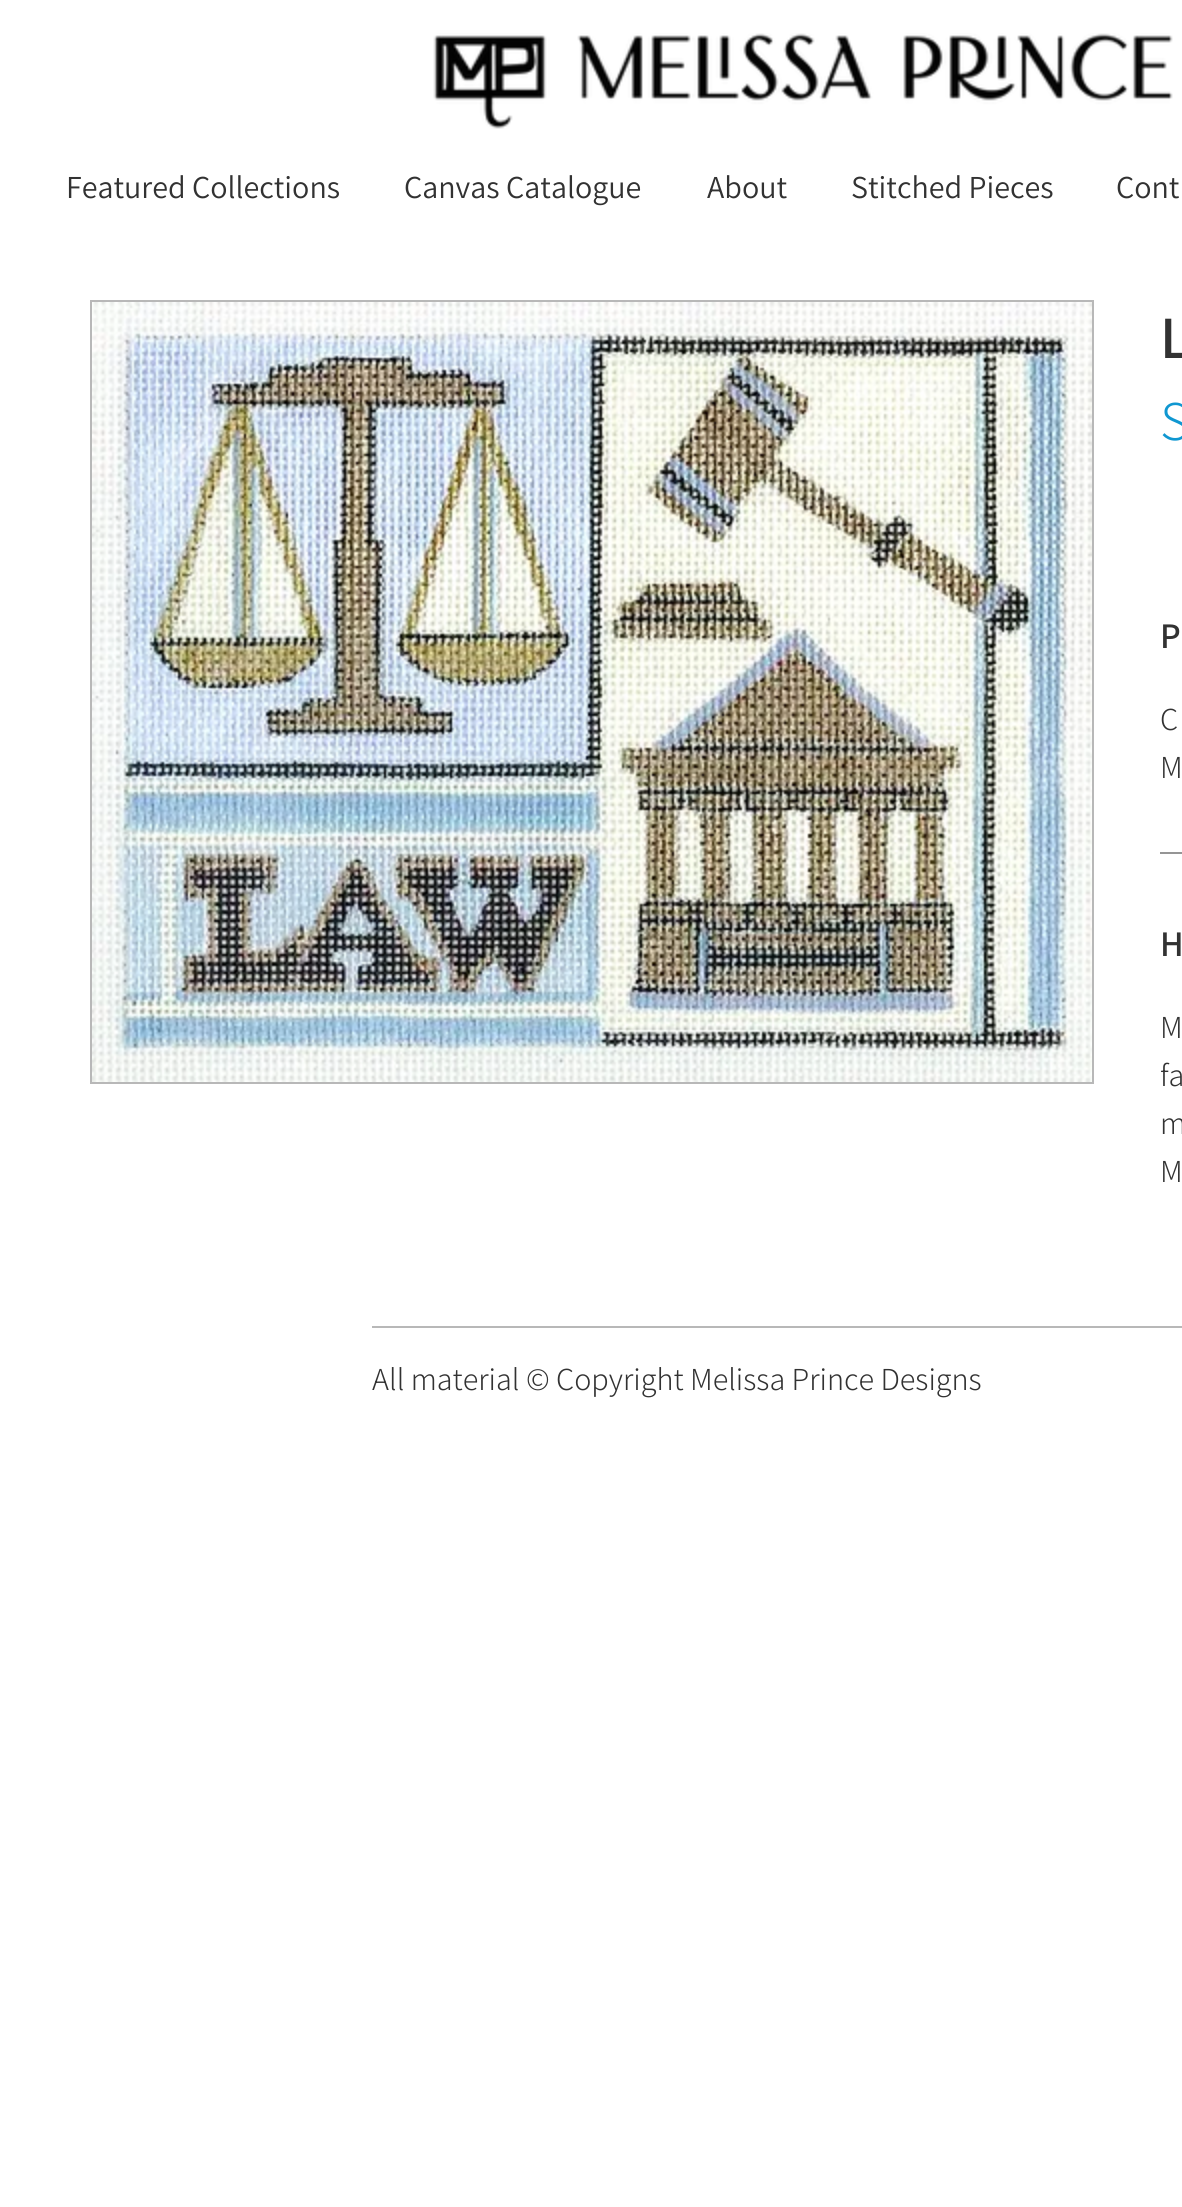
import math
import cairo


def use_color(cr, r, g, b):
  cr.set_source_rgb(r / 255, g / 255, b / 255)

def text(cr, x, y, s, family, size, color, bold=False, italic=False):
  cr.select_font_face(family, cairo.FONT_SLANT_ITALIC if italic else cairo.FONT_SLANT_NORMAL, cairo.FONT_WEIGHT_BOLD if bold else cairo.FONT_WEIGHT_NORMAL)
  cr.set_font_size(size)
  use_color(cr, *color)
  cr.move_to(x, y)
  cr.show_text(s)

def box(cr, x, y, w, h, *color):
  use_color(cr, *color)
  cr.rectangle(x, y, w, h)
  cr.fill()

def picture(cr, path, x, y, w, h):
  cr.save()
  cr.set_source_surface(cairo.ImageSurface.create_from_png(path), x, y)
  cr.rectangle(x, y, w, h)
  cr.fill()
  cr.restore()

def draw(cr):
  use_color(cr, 255, 255, 255)
  cr.paint()
  picture(cr, "img_01.png", 433, 33, 740, 96)
  cr.rectangle(91, 301, 1002, 782)
  use_color(cr, 184, 184, 184)
  cr.stroke()
  picture(cr, "img_02.png", 92, 302, 1000, 780)
  box(cr, 1160, 852, 22, 2, 149, 149, 149)
  box(cr, 372, 1326, 810, 2, 184, 184, 184)
  text(cr, 66, 198, "Featured Collections", "Assistant", 32, (50, 50, 50))
  text(cr, 404, 198, "Canvas Catalogue", "Assistant", 32, (50, 50, 50))
  text(cr, 707, 198, "About", "Assistant", 32, (50, 50, 50))
  text(cr, 851, 198, "Stitched Pieces", "Assistant", 32, (50, 50, 50))
  text(cr, 1116, 198, "Cont", "Assistant", 32, (50, 50, 50))
  text(cr, 1160, 358, "L", "Assistant SemiBold", 60, (50, 50, 50))
  text(cr, 1160, 440, "S", "Assistant Light", 56, (15, 151, 209))
  text(cr, 1160, 648, "P", "Assistant SemiBold", 36, (50, 50, 50))
  text(cr, 1160, 730, "C", "Assistant Light", 32, (50, 50, 50))
  text(cr, 1160, 778, "M", "Assistant Light", 32, (50, 50, 50))
  text(cr, 1160, 956, "H", "Assistant SemiBold", 36, (50, 50, 50))
  text(cr, 1160, 1038, "M", "Assistant Light", 32, (50, 50, 50))
  text(cr, 1160, 1086, "fa", "Assistant Light", 32, (50, 50, 50))
  text(cr, 1160, 1134, "m", "Assistant Light", 32, (50, 50, 50))
  text(cr, 1160, 1182, "M", "Assistant Light", 32, (50, 50, 50))
  text(cr, 372, 1390, "All material © Copyright Melissa Prince Designs", "Assistant Light", 32, (50, 50, 50))


surface = cairo.ImageSurface(cairo.FORMAT_RGB24, 1182, 2207)
cr = cairo.Context(surface)
options = cairo.FontOptions()
options.set_hint_metrics(cairo.HINT_METRICS_OFF)
options.set_hint_style(cairo.HINT_STYLE_NONE)
cr.set_font_options(options)
cr.set_miter_limit(4)
draw(cr)
surface.write_to_png("out.png")
